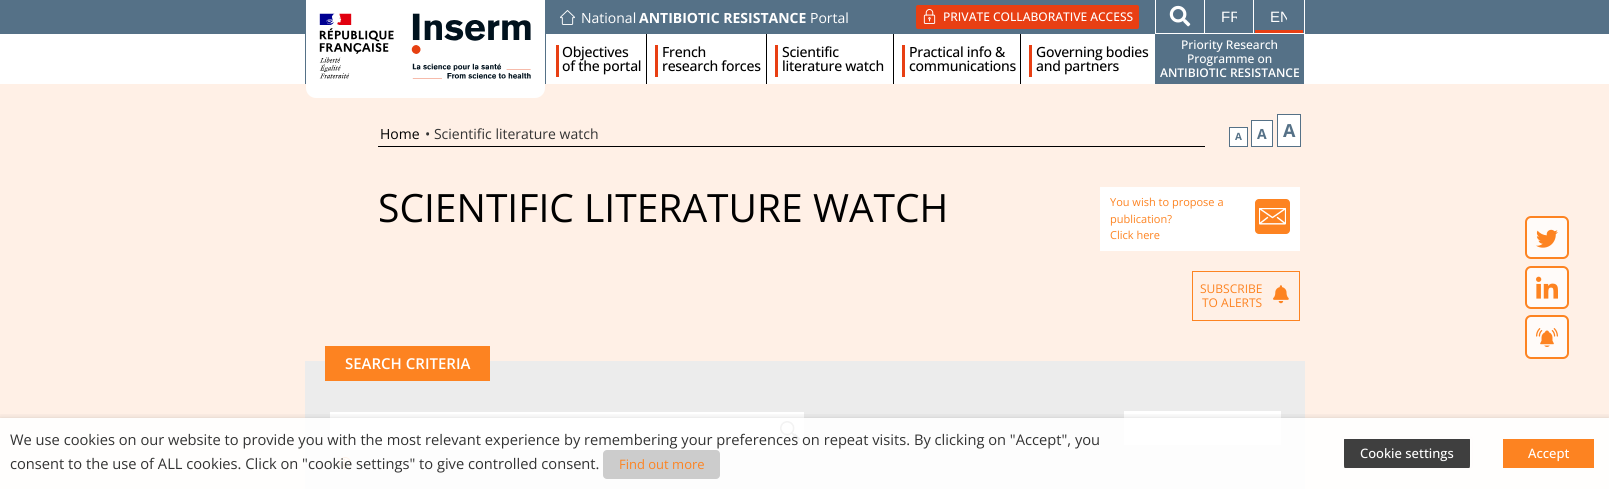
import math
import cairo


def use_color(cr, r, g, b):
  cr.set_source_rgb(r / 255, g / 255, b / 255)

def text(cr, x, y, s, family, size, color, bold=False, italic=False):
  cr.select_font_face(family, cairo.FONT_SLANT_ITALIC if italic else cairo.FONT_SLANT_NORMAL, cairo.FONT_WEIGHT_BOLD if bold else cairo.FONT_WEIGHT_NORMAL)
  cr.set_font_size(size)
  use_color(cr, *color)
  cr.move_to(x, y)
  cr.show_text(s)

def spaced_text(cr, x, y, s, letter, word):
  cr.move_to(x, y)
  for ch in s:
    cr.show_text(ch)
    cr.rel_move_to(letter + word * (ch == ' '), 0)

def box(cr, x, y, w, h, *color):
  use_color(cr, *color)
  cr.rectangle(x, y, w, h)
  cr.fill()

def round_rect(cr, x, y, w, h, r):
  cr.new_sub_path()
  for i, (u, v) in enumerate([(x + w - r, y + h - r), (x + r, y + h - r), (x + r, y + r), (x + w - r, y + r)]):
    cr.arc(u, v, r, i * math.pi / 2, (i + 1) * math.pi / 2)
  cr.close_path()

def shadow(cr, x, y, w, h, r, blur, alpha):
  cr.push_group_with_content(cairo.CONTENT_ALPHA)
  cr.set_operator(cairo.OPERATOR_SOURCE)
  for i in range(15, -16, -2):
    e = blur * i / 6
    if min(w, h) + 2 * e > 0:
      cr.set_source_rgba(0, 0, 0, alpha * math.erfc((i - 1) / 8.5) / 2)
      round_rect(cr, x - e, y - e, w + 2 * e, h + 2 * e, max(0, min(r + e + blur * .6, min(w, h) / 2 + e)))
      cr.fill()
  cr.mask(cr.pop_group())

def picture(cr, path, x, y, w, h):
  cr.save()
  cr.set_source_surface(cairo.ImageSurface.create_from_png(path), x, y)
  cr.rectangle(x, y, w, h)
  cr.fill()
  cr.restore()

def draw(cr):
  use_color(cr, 255, 240, 230)
  cr.paint()
  box(cr, 0, 0, 1609, 34, 85, 113, 135)
  picture(cr, "img_01.png", 560, 10, 15, 15)
  use_color(cr, 232, 63, 19)
  round_rect(cr, 916, 5, 223, 24, 2)
  cr.fill()
  picture(cr, "img_02.png", 923, 9, 13, 15)
  box(cr, 1304, 0, 1, 34, 255, 255, 255)
  box(cr, 1155, 33, 150, 1, 255, 255, 255)
  box(cr, 1155, 0, 1, 34, 255, 255, 255)
  box(cr, 1204, 0, 1, 33, 255, 255, 255)
  picture(cr, "img_03.png", 1169, 5, 22, 22)
  box(cr, 1253, 0, 1, 33, 255, 255, 255)
  box(cr, 1255, 30, 48, 3, 232, 63, 19)
  box(cr, 0, 34, 1609, 50, 255, 255, 255)
  box(cr, 305, 34, 1, 50, 85, 113, 135)
  use_color(cr, 255, 255, 255)
  cr.new_path()
  cr.move_to(306, 0)
  cr.line_to(545, 0)
  cr.line_to(545, 88)
  cr.curve_to(545, 93.5, 540.5, 98, 535, 98)
  cr.line_to(316, 98)
  cr.curve_to(310.5, 98, 306, 93.5, 306, 88)
  cr.close_path()
  cr.fill()
  picture(cr, "img_04.png", 319, 13, 212, 66)
  box(cr, 545, 34, 1, 50, 85, 113, 135)
  box(cr, 556, 45, 3, 32, 232, 63, 19)
  box(cr, 646, 34, 1, 50, 0, 0, 0)
  box(cr, 655, 45, 3, 32, 232, 63, 19)
  box(cr, 766, 34, 1, 50, 0, 0, 0)
  box(cr, 775, 45, 3, 32, 232, 63, 19)
  box(cr, 893, 34, 1, 50, 0, 0, 0)
  box(cr, 902, 45, 3, 32, 232, 63, 19)
  box(cr, 1020, 34, 1, 50, 0, 0, 0)
  box(cr, 1029, 45, 3, 32, 232, 63, 19)
  box(cr, 1155, 34, 149, 50, 85, 113, 135)
  use_color(cr, 255, 251, 249)
  round_rect(cr, 1526, 217, 42, 41, 5)
  cr.fill_preserve()
  use_color(cr, 253, 131, 33)
  cr.stroke()
  picture(cr, "img_05.png", 1536, 229, 22, 19)
  use_color(cr, 255, 251, 249)
  round_rect(cr, 1526, 267, 42, 41, 5)
  cr.fill_preserve()
  use_color(cr, 253, 131, 33)
  cr.stroke()
  picture(cr, "img_06.png", 1536, 276, 22, 23)
  use_color(cr, 255, 251, 249)
  round_rect(cr, 1526, 316, 42, 42, 5)
  cr.fill_preserve()
  use_color(cr, 253, 131, 33)
  cr.stroke()
  picture(cr, "img_07.png", 1536, 328, 22, 19)
  box(cr, 378, 146, 827, 1, 0, 0, 0)
  use_color(cr, 255, 255, 255)
  cr.rectangle(1229.5, 127.5, 18, 19)
  cr.fill_preserve()
  use_color(cr, 85, 113, 135)
  cr.set_line_width(1)
  cr.stroke()
  use_color(cr, 255, 255, 255)
  cr.rectangle(1251.5, 120.5, 21, 26)
  cr.fill_preserve()
  use_color(cr, 85, 113, 135)
  cr.stroke()
  use_color(cr, 255, 255, 255)
  cr.rectangle(1277.5, 114.5, 23, 32)
  cr.fill_preserve()
  use_color(cr, 85, 113, 135)
  cr.stroke()
  box(cr, 1100, 187, 200, 64, 255, 255, 255)
  picture(cr, "img_08.png", 1255, 199, 35, 35)
  cr.rectangle(1192.5, 271.5, 107, 49)
  use_color(cr, 253, 131, 33)
  cr.stroke()
  picture(cr, "img_09.png", 1273, 285, 16, 19)
  box(cr, 305, 361, 1000, 128, 236, 236, 236)
  box(cr, 325, 346, 165, 35, 253, 131, 33)
  box(cr, 330, 412, 474, 38, 255, 255, 255)
  picture(cr, "img_10.png", 780, 421, 20, 20)
  cr.arc(345, 463, 5.5, 0, 2 * math.pi)
  use_color(cr, 253, 131, 33)
  cr.stroke()
  picture(cr, "img_11.png", 343, 458, 3, 8)
  box(cr, 1124, 411, 157, 34, 255, 255, 255)
  cr.save()
  cr.rectangle(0, 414, 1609, 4)
  cr.clip()
  use_color(cr, 0, 0, 0)
  shadow(cr, 0, 423, 1609, 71, 0, 5, 0.5)
  cr.restore()
  cr.set_source_rgba(1, 1, 1, 0.9)
  cr.rectangle(0, 418, 1609, 71)
  cr.fill()
  use_color(cr, 204, 204, 204)
  round_rect(cr, 603, 450, 117, 29, 4)
  cr.fill()
  use_color(cr, 63, 63, 63)
  cr.new_path()
  cr.move_to(1345, 439)
  cr.line_to(1469, 439)
  cr.curve_to(1470, 439, 1470, 439, 1470, 440)
  cr.line_to(1470, 465)
  cr.curve_to(1470, 467, 1470, 468, 1469, 468)
  cr.line_to(1345, 468)
  cr.curve_to(1344, 468, 1344, 467, 1344, 465)
  cr.line_to(1344, 440)
  cr.curve_to(1344, 439, 1344, 439, 1345, 439)
  cr.close_path()
  cr.fill()
  round_rect(cr, 1341.5, 436.5, 131, 32, 3.5)
  use_color(cr, 255, 252, 252)
  cr.stroke()
  box(cr, 1503, 439, 91, 29, 253, 131, 33)
  text(cr, 581, 23, "National", "Open Sans", 14, (255, 255, 255))
  text(cr, 639, 23, "ANTIBIOTIC RESISTANCE", "Open Sans", 14, (255, 255, 255), bold=True)
  text(cr, 810, 23, "Portal", "Open Sans", 14, (255, 255, 255))
  text(cr, 943, 21, "PRIVATE COLLABORATIVE ACCESS", "Open Sans Medium", 12, (255, 255, 255))
  cr.save()
  cr.rectangle(1221, 7, 16, 19)
  cr.clip()
  text(cr, 1221, 22, "FR", "Liberation Sans", 15, (255, 255, 255))
  cr.restore()
  cr.save()
  cr.rectangle(1270, 7, 17, 19)
  cr.clip()
  text(cr, 1270, 22, "EN", "Liberation Sans", 15, (255, 255, 255))
  cr.restore()
  cr.set_font_size(14)
  use_color(cr, 0, 0, 0)
  spaced_text(cr, 562, 57, "Objectives", -0.25, 0)
  spaced_text(cr, 562, 71, "of the portal", -0.25, 0)
  spaced_text(cr, 662, 57, "French", -0.25, 0)
  spaced_text(cr, 662, 71, "research forces", -0.25, 0)
  spaced_text(cr, 782, 57, "Scientific", -0.25, 0)
  spaced_text(cr, 782, 71, "literature watch", -0.25, 0)
  spaced_text(cr, 909, 57, "Practical info &", -0.25, 0)
  spaced_text(cr, 909, 71, "communications", -0.25, 0)
  spaced_text(cr, 1036, 57, "Governing bodies", -0.25, 0)
  spaced_text(cr, 1036, 71, "and partners", -0.25, 0)
  text(cr, 1181, 49, "Priority Research", "Open Sans Medium", 12, (255, 255, 255))
  text(cr, 1187, 63, "Programme on", "Open Sans Medium", 12, (255, 255, 255))
  text(cr, 1160, 77, "ANTIBIOTIC RESISTANCE", "Open Sans SemiBold", 12, (255, 255, 255))
  text(cr, 380, 139, "Home", "Open Sans", 14, (0, 0, 0))
  text(cr, 425, 139, "• Scientific literature watch", "Open Sans", 14, (51, 51, 51))
  text(cr, 1235, 140, "A", "Open Sans", 10, (85, 113, 135), bold=True)
  text(cr, 1257, 139, "A", "Open Sans", 14, (85, 113, 135), bold=True)
  text(cr, 1283, 137, "A", "Open Sans", 18, (85, 113, 135), bold=True)
  text(cr, 378, 222, "SCIENTIFIC LITERATURE WATCH", "Open Sans", 39, (0, 0, 0))
  text(cr, 1110, 206, "You wish to propose a", "Open Sans", 11, (253, 131, 33))
  text(cr, 1110, 223, "publication?", "Open Sans", 11, (253, 131, 33))
  text(cr, 1110, 239, "Click here", "Open Sans", 11, (253, 131, 33))
  text(cr, 1200, 293, "SUBSCRIBE", "Open Sans", 12, (253, 131, 33))
  text(cr, 1202, 307, "TO ALERTS", "Open Sans", 12, (253, 131, 33))
  text(cr, 345, 369, "SEARCH CRITERIA", "Open Sans SemiBold", 15, (255, 255, 255))
  text(cr, 10, 445, "We use cookies on our website to provide you with the most relevant experience by remembering your preferences on repeat visits. By clicking on \"Accept\", you", "Open Sans", 14.67, (51, 51, 51))
  text(cr, 10, 469, "consent to the use of ALL cookies. Click on \"cookie settings\" to give controlled consent.", "Open Sans", 14.67, (51, 51, 51))
  text(cr, 619, 469, "Find out more", "Open Sans", 13, (253, 131, 33))
  text(cr, 1360, 458, "Cookie settings", "Open Sans Medium", 13, (255, 255, 255))
  text(cr, 1528, 458, "Accept", "Open Sans Medium", 13, (255, 255, 255))


surface = cairo.ImageSurface(cairo.FORMAT_RGB24, 1609, 489)
cr = cairo.Context(surface)
options = cairo.FontOptions()
options.set_hint_metrics(cairo.HINT_METRICS_OFF)
options.set_hint_style(cairo.HINT_STYLE_NONE)
cr.set_font_options(options)
cr.set_miter_limit(4)
draw(cr)
surface.write_to_png("out.png")
